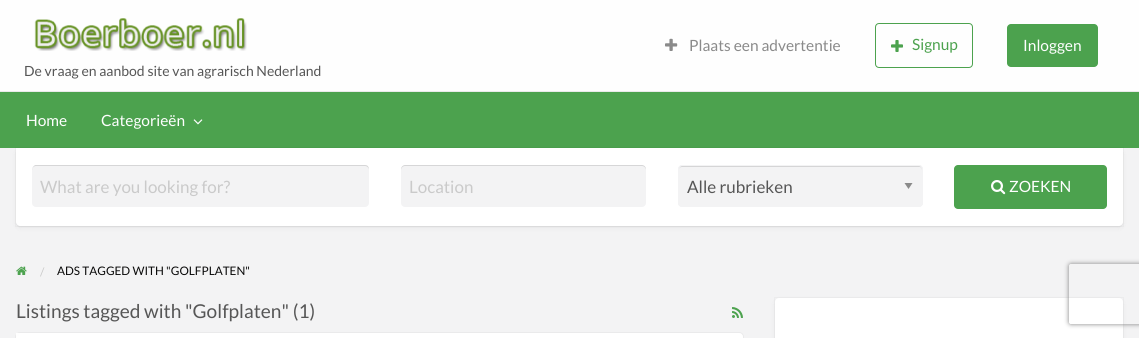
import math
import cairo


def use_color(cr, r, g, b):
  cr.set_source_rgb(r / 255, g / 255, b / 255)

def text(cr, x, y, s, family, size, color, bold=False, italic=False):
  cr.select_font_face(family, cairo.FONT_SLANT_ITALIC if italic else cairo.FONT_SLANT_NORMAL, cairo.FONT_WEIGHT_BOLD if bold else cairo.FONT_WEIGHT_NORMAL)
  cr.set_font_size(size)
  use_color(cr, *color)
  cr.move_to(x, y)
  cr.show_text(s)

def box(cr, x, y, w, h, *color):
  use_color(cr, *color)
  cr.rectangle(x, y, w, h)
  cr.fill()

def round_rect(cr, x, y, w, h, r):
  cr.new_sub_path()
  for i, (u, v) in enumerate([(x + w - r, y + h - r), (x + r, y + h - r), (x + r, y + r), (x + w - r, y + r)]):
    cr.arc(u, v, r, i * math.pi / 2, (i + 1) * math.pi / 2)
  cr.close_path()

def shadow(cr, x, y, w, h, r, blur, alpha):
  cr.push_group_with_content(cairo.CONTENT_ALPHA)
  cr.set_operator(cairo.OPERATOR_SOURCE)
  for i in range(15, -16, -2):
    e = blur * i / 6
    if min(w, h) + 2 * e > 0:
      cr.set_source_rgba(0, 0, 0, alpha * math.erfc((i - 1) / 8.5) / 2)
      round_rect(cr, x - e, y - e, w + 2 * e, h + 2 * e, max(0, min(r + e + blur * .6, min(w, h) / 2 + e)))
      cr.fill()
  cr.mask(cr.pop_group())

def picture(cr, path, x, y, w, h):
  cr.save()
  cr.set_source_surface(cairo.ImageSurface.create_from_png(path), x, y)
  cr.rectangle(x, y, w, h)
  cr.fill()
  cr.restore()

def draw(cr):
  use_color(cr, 243, 243, 244)
  cr.paint()
  box(cr, 0, 0, 1139, 91, 254, 254, 254)
  box(cr, 0, 91, 1139, 1, 234, 234, 234)
  picture(cr, "img_01.png", 665, 38, 13, 13)
  round_rect(cr, 875.5, 23.5, 97, 44, 3.5)
  use_color(cr, 76, 162, 78)
  cr.set_line_width(1)
  cr.stroke()
  picture(cr, "img_02.png", 891, 40, 12, 12)
  round_rect(cr, 1007, 24, 91, 43, 4)
  cr.fill()
  picture(cr, "img_03.png", 34, 18, 213, 33)
  box(cr, 0, 92, 1139, 56, 76, 162, 78)
  picture(cr, "img_04.png", 193, 119, 10, 6)
  use_color(cr, 0, 0, 0)
  shadow(cr, 16, 150, 1107, 78, 4, 2.5, 0.05)
  shadow(cr, 16, 149, 1107, 78, 4, 0.5, 0.05)
  cr.rectangle(15.5, 147.5, 1108, 79)
  cr.set_source_rgba(0, 0, 0, 0.03)
  cr.stroke()
  use_color(cr, 255, 255, 255)
  cr.new_path()
  cr.move_to(16, 148)
  cr.line_to(1123, 148)
  cr.line_to(1123, 222)
  cr.curve_to(1123, 224, 1121, 226, 1119, 226)
  cr.line_to(20, 226)
  cr.curve_to(18, 226, 16, 224, 16, 222)
  cr.close_path()
  cr.fill()
  use_color(cr, 243, 243, 244)
  round_rect(cr, 32, 165, 337, 42, 4)
  cr.fill()
  cr.set_source_rgba(0, 0, 0, 0.12)
  cr.new_path()
  cr.move_to(36, 166)
  cr.line_to(365, 166)
  cr.curve_to(367, 166, 369, 168, 369, 170)
  cr.curve_to(369, 167, 368, 165, 365, 165)
  cr.line_to(35, 165)
  cr.line_to(33, 167)
  cr.line_to(32, 170)
  cr.curve_to(32, 168, 34, 166, 36, 166)
  cr.close_path()
  cr.fill()
  use_color(cr, 243, 243, 244)
  round_rect(cr, 401, 165, 245, 42, 4)
  cr.fill()
  cr.set_source_rgba(0, 0, 0, 0.12)
  cr.new_path()
  cr.move_to(405, 166)
  cr.line_to(642, 166)
  cr.curve_to(644, 166, 646, 168, 646, 170)
  cr.line_to(646, 169)
  cr.curve_to(646, 167, 644, 165, 642, 165)
  cr.line_to(405, 165)
  cr.curve_to(403, 165, 401, 167, 401, 169)
  cr.line_to(401, 170)
  cr.curve_to(401, 168, 403, 166, 405, 166)
  cr.close_path()
  cr.fill()
  use_color(cr, 243, 243, 244)
  round_rect(cr, 678, 165, 245, 42, 4)
  cr.fill()
  use_color(cr, 138, 138, 138)
  cr.new_path()
  cr.move_to(904.5, 183)
  cr.line_to(912.5, 183)
  cr.line_to(908.5, 189)
  cr.close_path()
  cr.fill()
  use_color(cr, 213, 213, 214)
  cr.new_path()
  cr.move_to(682, 167)
  cr.line_to(920, 167)
  cr.line_to(922, 168)
  cr.line_to(922, 170)
  cr.curve_to(922, 168, 921, 166, 919, 166)
  cr.line_to(682, 166)
  cr.curve_to(680, 166, 679, 168, 679, 170)
  cr.curve_to(679, 168, 680, 167, 682, 167)
  cr.close_path()
  cr.fill()
  round_rect(cr, 678.5, 165.5, 244, 41, 3.5)
  use_color(cr, 243, 243, 244)
  cr.stroke()
  use_color(cr, 76, 162, 78)
  round_rect(cr, 954, 165, 153, 44, 4)
  cr.fill()
  picture(cr, "img_05.png", 991, 180, 15, 15)
  picture(cr, "img_06.png", 16, 266, 11, 9)
  picture(cr, "img_07.png", 732, 307, 11, 11)
  round_rect(cr, 15.5, 332.5, 728, 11, 4.5)
  use_color(cr, 234, 234, 235)
  cr.stroke()
  use_color(cr, 255, 255, 255)
  round_rect(cr, 16, 333, 727, 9, 4)
  cr.fill()
  box(cr, 16, 333, 3, 3, 254, 254, 254)
  use_color(cr, 0, 0, 0)
  shadow(cr, 775, 300, 348, 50, 4, 2.5, 0.05)
  cr.rectangle(774.5, 297.5, 349, 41)
  cr.set_source_rgba(0, 0, 0, 0.03)
  cr.stroke()
  use_color(cr, 255, 255, 255)
  round_rect(cr, 775, 298, 348, 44, 4)
  cr.fill()
  cr.save()
  cr.set_fill_rule(cairo.FILL_RULE_EVEN_ODD)
  cr.new_path()
  cr.move_to(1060, 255)
  cr.line_to(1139, 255)
  cr.line_to(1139, 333)
  cr.line_to(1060, 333)
  cr.close_path()
  cr.move_to(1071, 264)
  cr.line_to(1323, 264)
  cr.curve_to(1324, 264, 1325, 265, 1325, 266)
  cr.line_to(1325, 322)
  cr.curve_to(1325, 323, 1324, 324, 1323, 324)
  cr.line_to(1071, 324)
  cr.curve_to(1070, 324, 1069, 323, 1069, 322)
  cr.line_to(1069, 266)
  cr.curve_to(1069, 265, 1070, 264, 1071, 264)
  cr.close_path()
  cr.clip()
  use_color(cr, 128, 128, 128)
  shadow(cr, 1069, 264, 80, 60, 2, 2.5, 1)
  cr.restore()
  text(cr, 689, 51, "Plaats een advertentie", "Lato", 15.5, (138, 138, 138))
  text(cr, 912, 50, "Signup", "Lato", 15.5, (76, 162, 78))
  text(cr, 1023, 51, "Inloggen", "Lato", 15.5, (254, 254, 254))
  text(cr, 24, 76, "De vraag en aanbod site van agrarisch Nederland", "Lato", 14, (86, 86, 86))
  text(cr, 26, 126, "Home", "Lato", 15.5, (254, 254, 254))
  text(cr, 101, 126, "Categorieën", "Lato", 15.5, (254, 254, 254))
  text(cr, 40, 193, "What are you looking for?", "Lato", 17, (202, 202, 202))
  text(cr, 409, 193, "Location", "Lato", 17, (202, 202, 202))
  text(cr, 687, 193, "Alle rubrieken", "Lato", 17, (86, 86, 86))
  text(cr, 1009, 192, "ZOEKEN", "Lato", 15.5, (254, 254, 254))
  text(cr, 40, 276, "/", "Lato", 11.75, (202, 202, 202))
  text(cr, 57, 275, "ADS TAGGED WITH \"GOLFPLATEN\"", "Lato", 11.75, (10, 10, 10))
  text(cr, 16, 318, "Listings tagged with \"Golfplaten\" (1)", "Lato", 19.1, (86, 86, 86))


surface = cairo.ImageSurface(cairo.FORMAT_RGB24, 1139, 338)
cr = cairo.Context(surface)
options = cairo.FontOptions()
options.set_hint_metrics(cairo.HINT_METRICS_OFF)
options.set_hint_style(cairo.HINT_STYLE_NONE)
cr.set_font_options(options)
cr.set_miter_limit(4)
draw(cr)
surface.write_to_png("out.png")
